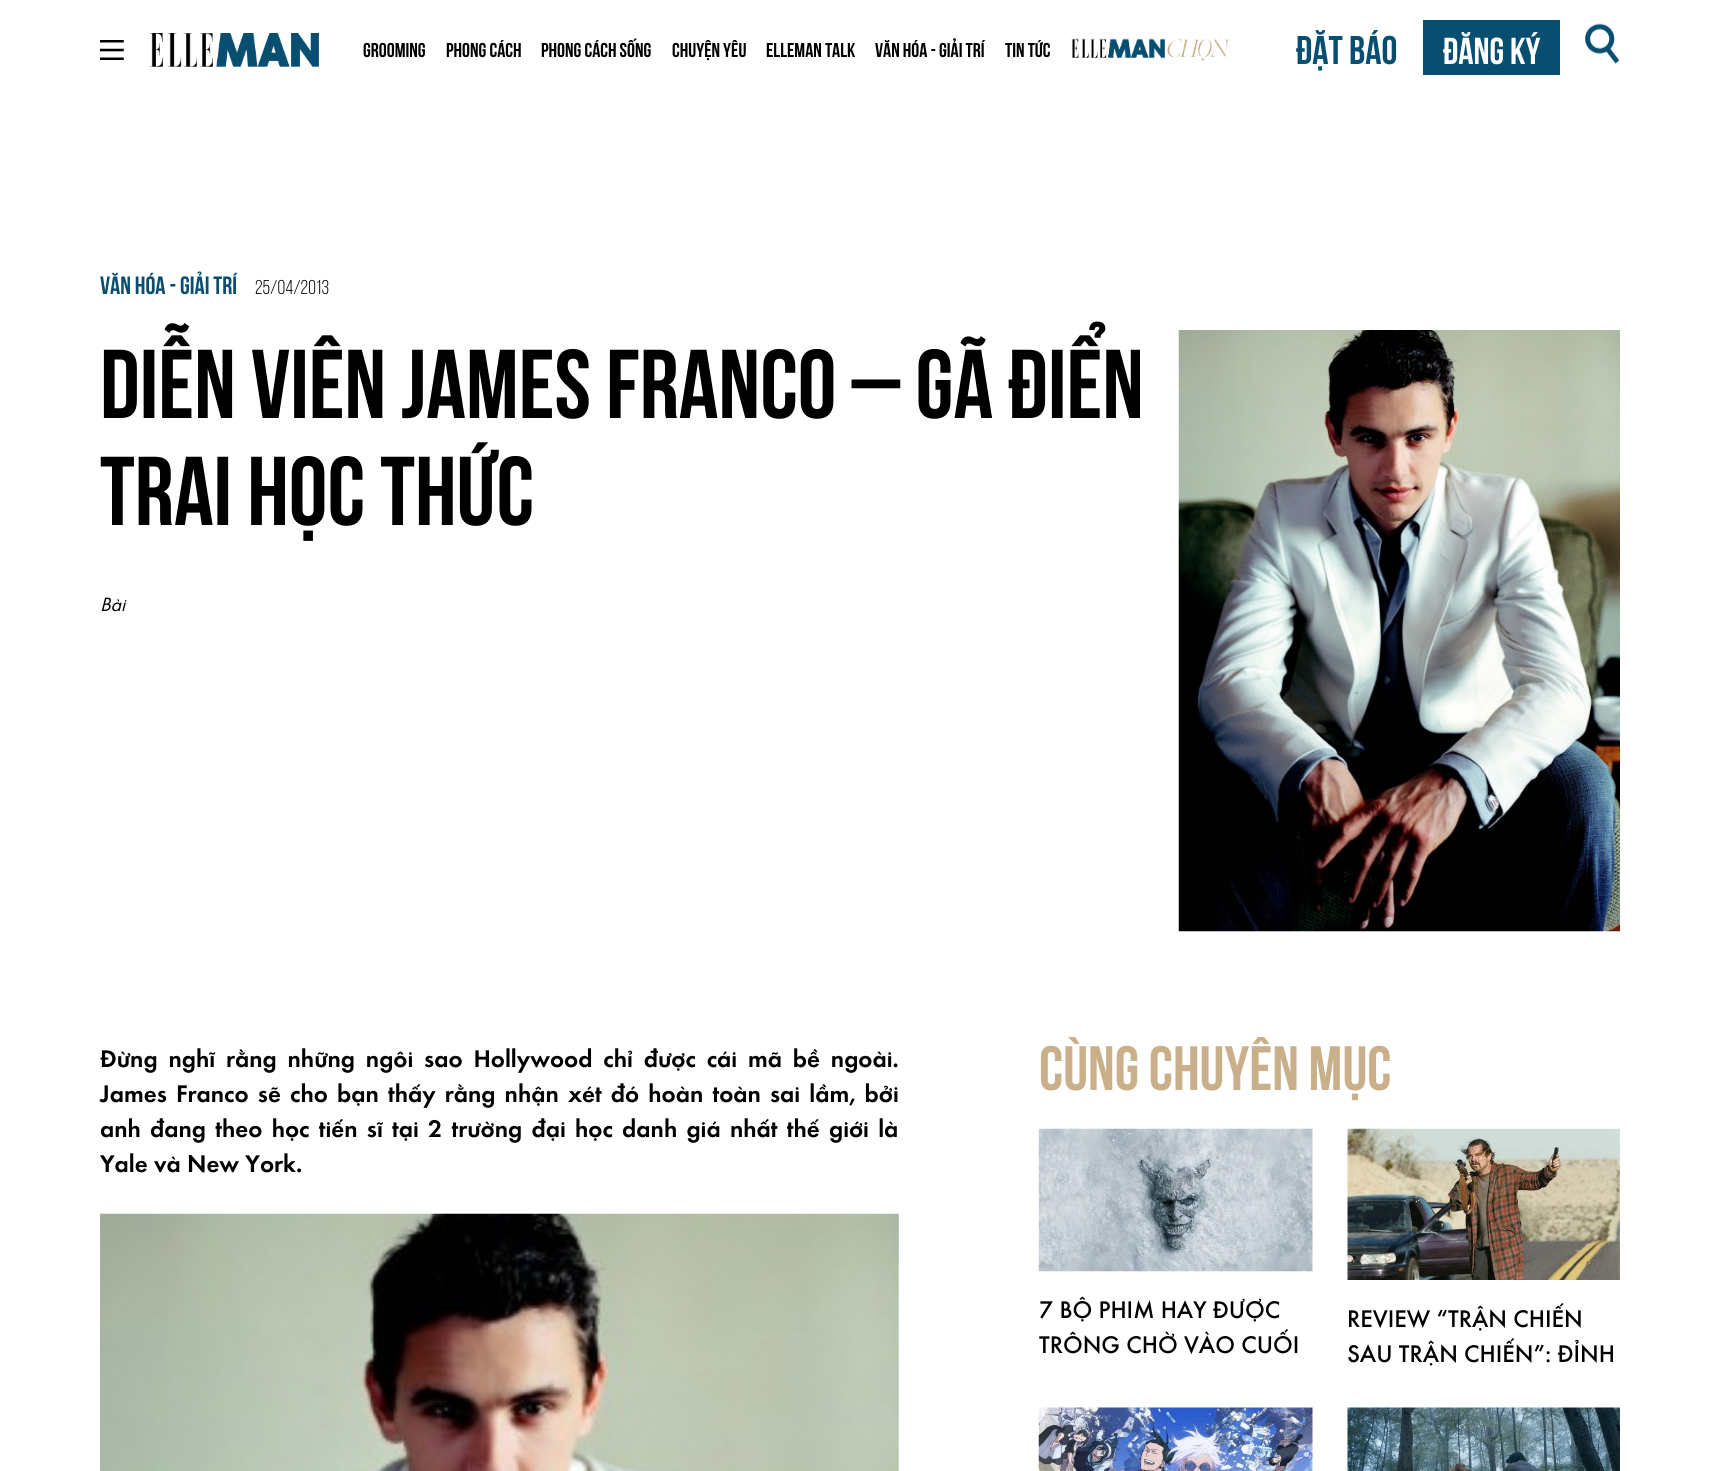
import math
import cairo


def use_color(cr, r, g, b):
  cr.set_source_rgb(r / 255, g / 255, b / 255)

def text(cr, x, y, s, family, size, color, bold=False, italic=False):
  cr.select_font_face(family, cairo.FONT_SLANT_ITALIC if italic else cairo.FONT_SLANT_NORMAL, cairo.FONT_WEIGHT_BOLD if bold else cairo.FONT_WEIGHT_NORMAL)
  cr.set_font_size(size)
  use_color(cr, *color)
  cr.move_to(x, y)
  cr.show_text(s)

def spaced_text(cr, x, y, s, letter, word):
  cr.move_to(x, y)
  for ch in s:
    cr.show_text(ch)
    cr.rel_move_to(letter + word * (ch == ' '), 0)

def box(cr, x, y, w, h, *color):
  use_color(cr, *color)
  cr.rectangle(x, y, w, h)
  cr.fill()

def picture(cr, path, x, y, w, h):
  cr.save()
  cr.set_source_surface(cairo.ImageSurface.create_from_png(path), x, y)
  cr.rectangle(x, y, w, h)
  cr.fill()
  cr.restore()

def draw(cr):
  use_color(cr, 255, 255, 255)
  cr.paint()
  picture(cr, "img_01.png", 100, 40, 24, 20)
  picture(cr, "img_02.png", 149, 33, 170, 34)
  picture(cr, "img_03.png", 1071, 38, 158, 23)
  box(cr, 1423, 20, 137, 55, 7, 78, 112)
  picture(cr, "img_04.png", 1585, 23, 35, 41)
  picture(cr, "img_05.png", 1178, 330, 442, 602)
  picture(cr, "img_06.png", 100, 1213, 799, 258)
  picture(cr, "img_07.png", 1038, 1128, 275, 144)
  picture(cr, "img_08.png", 1347, 1128, 273, 152)
  picture(cr, "img_09.png", 1038, 1407, 275, 64)
  picture(cr, "img_10.png", 1347, 1407, 273, 64)
  text(cr, 363, 57, "Grooming", "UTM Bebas", 20, (0, 0, 0))
  text(cr, 446, 57, "Phong cách", "UTM Bebas", 20, (0, 0, 0))
  text(cr, 541, 57, "Phong cách sống", "UTM Bebas", 20, (0, 0, 0))
  text(cr, 672, 57, "Chuyện yêu", "UTM Bebas", 20, (0, 0, 0))
  text(cr, 766, 57, "ELLEMAN TALK", "UTM Bebas", 20, (0, 0, 0))
  text(cr, 875, 57, "Văn hóa - Giải trí", "UTM Bebas", 20, (0, 0, 0))
  text(cr, 1005, 57, "Tin tức", "UTM Bebas", 20, (0, 0, 0))
  text(cr, 1296, 64, "ĐẶT BÁO", "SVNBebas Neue", 40, (7, 78, 112), bold=True)
  text(cr, 1443, 64, "ĐĂNG KÝ", "UTM Bebas", 37.5, (255, 255, 255))
  text(cr, 100, 294, "VĂN HÓA - GIẢI TRÍ", "SVNBebas Neue", 25, (7, 78, 112), bold=True)
  text(cr, 255, 294, "25/04/2013", "SVNBebas Neue", 20, (0, 0, 0))
  text(cr, 100, 418, "DIỄN VIÊN JAMES FRANCO – GÃ ĐIỂN", "SVNBebas Neue", 97.5, (0, 0, 0), bold=True)
  text(cr, 100, 525, "TRAI HỌC THỨC", "SVNBebas Neue", 97.5, (0, 0, 0), bold=True)
  text(cr, 100, 611, "Bài", "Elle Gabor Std", 20, (0, 0, 0), italic=True)
  cr.select_font_face("Elle Gabor Std SemiBold")
  cr.set_font_size(25)
  spaced_text(cr, 100, 1067, "Đừng nghĩ rằng những ngôi sao Hollywood chỉ được cái mã bề ngoài.", 0, 4.6)
  spaced_text(cr, 100, 1102, "James Franco sẽ cho bạn thấy rằng nhận xét đó hoàn toàn sai lầm, bởi", 0, 2.9)
  spaced_text(cr, 100, 1137, "anh đang theo học tiến sĩ tại 2 trường đại học danh giá nhất thế giới là", 0, 3)
  text(cr, 100, 1172, "Yale và New York.", "Elle Gabor Std SemiBold", 25, (0, 0, 0))
  text(cr, 1039, 1090, "CÙNG CHUYÊN MỤC", "SVNBebas Neue", 62.5, (201, 176, 138), bold=True)
  text(cr, 1039, 1318, "7 BỘ PHIM HAY ĐƯỢC", "Elle Gabor Std Medium", 25, (0, 0, 0))
  text(cr, 1039, 1353, "TRÔNG CHỜ VÀO CUỐI", "Elle Gabor Std Medium", 25, (0, 0, 0))
  text(cr, 1347, 1327, "REVIEW “TRẬN CHIẾN", "Elle Gabor Std Medium", 25, (0, 0, 0))
  text(cr, 1347, 1362, "SAU TRẬN CHIẾN”: ĐỈNH", "Elle Gabor Std Medium", 25, (0, 0, 0))


surface = cairo.ImageSurface(cairo.FORMAT_RGB24, 1719, 1471)
cr = cairo.Context(surface)
options = cairo.FontOptions()
options.set_hint_metrics(cairo.HINT_METRICS_OFF)
options.set_hint_style(cairo.HINT_STYLE_NONE)
cr.set_font_options(options)
cr.set_miter_limit(4)
draw(cr)
surface.write_to_png("out.png")
